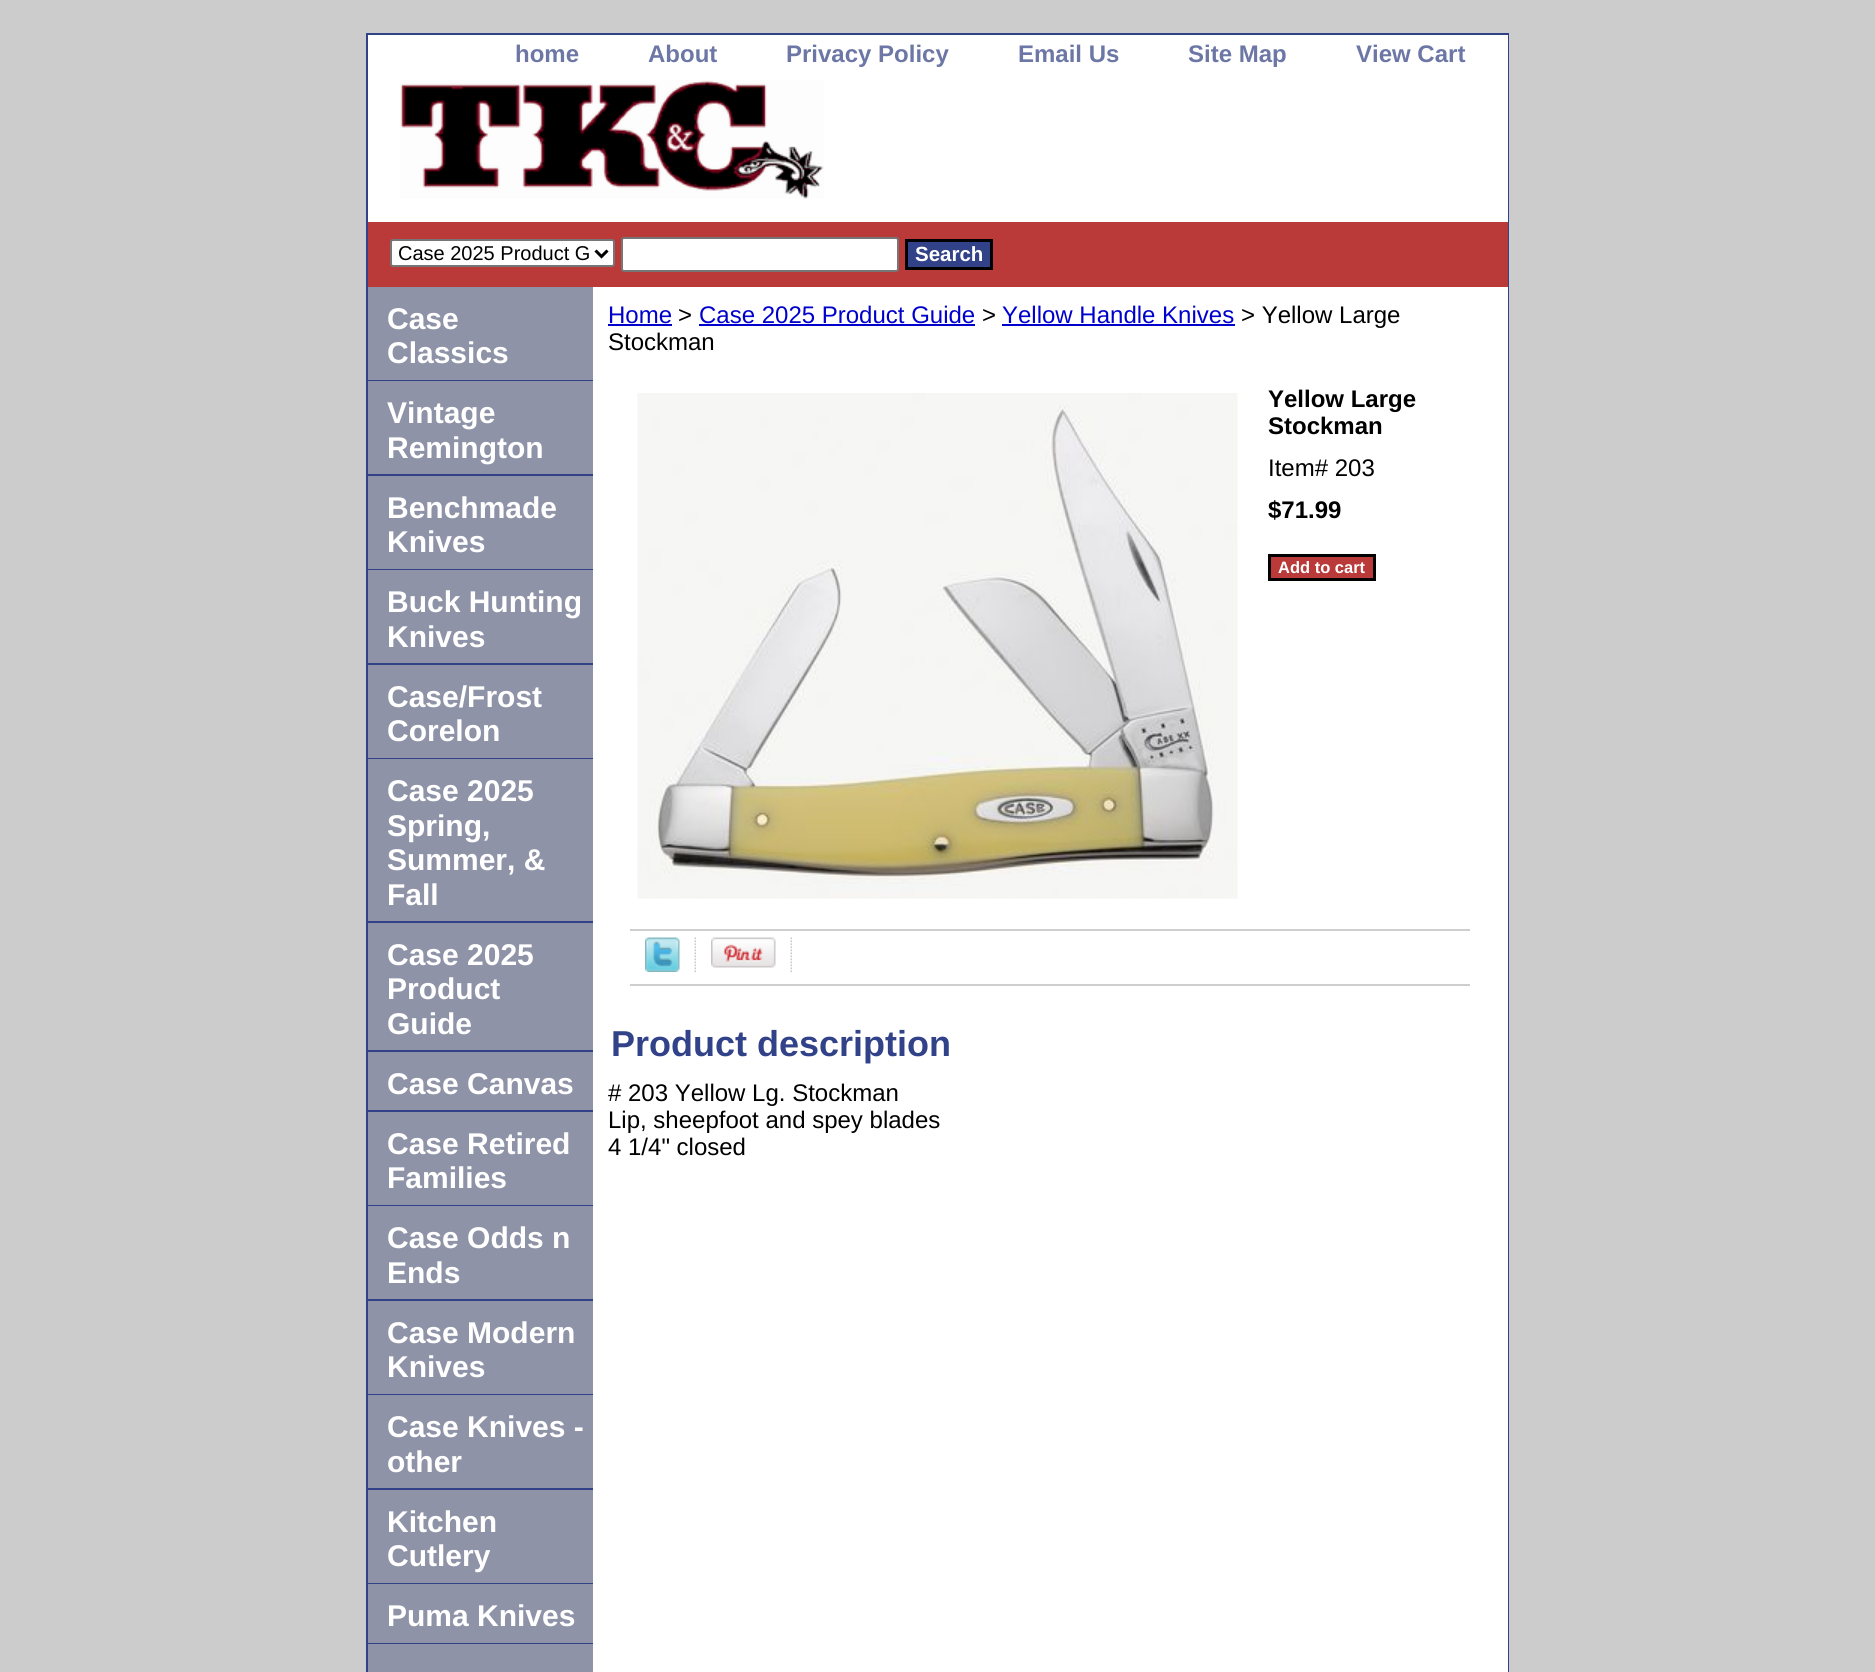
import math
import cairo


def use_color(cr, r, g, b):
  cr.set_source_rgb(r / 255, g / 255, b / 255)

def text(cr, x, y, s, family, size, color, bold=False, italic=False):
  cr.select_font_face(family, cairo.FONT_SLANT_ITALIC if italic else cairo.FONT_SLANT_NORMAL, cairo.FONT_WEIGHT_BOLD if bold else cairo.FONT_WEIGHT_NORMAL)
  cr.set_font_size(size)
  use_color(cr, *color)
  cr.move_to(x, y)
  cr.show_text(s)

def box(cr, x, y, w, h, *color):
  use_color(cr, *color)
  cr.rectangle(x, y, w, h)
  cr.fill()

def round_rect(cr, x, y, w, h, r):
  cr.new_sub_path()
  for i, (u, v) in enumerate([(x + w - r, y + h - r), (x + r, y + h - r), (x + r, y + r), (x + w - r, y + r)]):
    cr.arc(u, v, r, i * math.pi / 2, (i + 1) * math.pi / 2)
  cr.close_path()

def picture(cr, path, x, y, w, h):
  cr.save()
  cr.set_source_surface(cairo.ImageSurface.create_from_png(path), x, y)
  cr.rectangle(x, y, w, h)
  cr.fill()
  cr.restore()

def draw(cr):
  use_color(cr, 204, 204, 204)
  cr.paint()
  cr.rectangle(367, 34, 1141, 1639)
  use_color(cr, 50, 66, 137)
  cr.stroke()
  box(cr, 368, 35, 1140, 187, 255, 255, 255)
  picture(cr, "img_01.png", 400, 80, 424, 119)
  box(cr, 368, 222, 1140, 65, 186, 58, 58)
  use_color(cr, 255, 255, 255)
  round_rect(cr, 391, 240, 223, 26, 2)
  cr.fill_preserve()
  use_color(cr, 118, 118, 118)
  cr.stroke()
  cr.new_path()
  cr.move_to(595.5, 250.5)
  cr.line_to(601.5, 256.5)
  cr.line_to(607.5, 250.5)
  use_color(cr, 0, 0, 0)
  cr.set_line_width(3)
  cr.stroke()
  use_color(cr, 255, 255, 255)
  round_rect(cr, 622, 238, 276, 33, 2)
  cr.fill_preserve()
  use_color(cr, 118, 118, 118)
  cr.set_line_width(2)
  cr.stroke()
  use_color(cr, 50, 66, 137)
  cr.rectangle(906.5, 240.5, 85, 28)
  cr.fill_preserve()
  use_color(cr, 0, 0, 0)
  cr.set_line_width(3)
  cr.stroke()
  box(cr, 593, 287, 915, 1385, 255, 255, 255)
  box(cr, 368, 287, 225, 1296, 143, 147, 167)
  box(cr, 368, 380, 225, 1, 50, 66, 137)
  box(cr, 368, 474, 225, 2, 50, 66, 137)
  box(cr, 368, 569, 225, 1, 50, 66, 137)
  box(cr, 368, 663, 225, 2, 50, 66, 137)
  box(cr, 368, 758, 225, 1, 50, 66, 137)
  box(cr, 368, 921, 225, 2, 50, 66, 137)
  box(cr, 368, 1050, 225, 2, 50, 66, 137)
  box(cr, 368, 1110, 225, 2, 50, 66, 137)
  box(cr, 368, 1205, 225, 1, 50, 66, 137)
  box(cr, 368, 1299, 225, 2, 50, 66, 137)
  box(cr, 368, 1394, 225, 1, 50, 66, 137)
  box(cr, 368, 1488, 225, 2, 50, 66, 137)
  box(cr, 368, 1583, 225, 1, 50, 66, 137)
  box(cr, 368, 1584, 225, 59, 143, 147, 167)
  box(cr, 368, 1643, 225, 1, 50, 66, 137)
  box(cr, 368, 1644, 225, 28, 143, 147, 167)
  box(cr, 608, 324, 64, 2, 0, 0, 204)
  box(cr, 699, 324, 276, 2, 0, 0, 204)
  box(cr, 1002, 324, 233, 2, 0, 0, 204)
  picture(cr, "img_02.png", 637, 393, 601, 506)
  use_color(cr, 186, 58, 58)
  cr.rectangle(1269.5, 555.5, 105, 24)
  cr.fill_preserve()
  use_color(cr, 0, 0, 0)
  cr.stroke()
  box(cr, 630, 929, 840, 2, 207, 206, 206)
  picture(cr, "img_03.png", 645, 937, 35, 35)
  picture(cr, "img_04.png", 694, 937, 2, 35)
  picture(cr, "img_05.png", 711, 937, 65, 31)
  picture(cr, "img_04.png", 790, 937, 2, 35)
  box(cr, 630, 984, 840, 2, 207, 206, 206)
  text(cr, 515, 62, "home", "Liberation Sans", 24, (109, 119, 166), bold=True)
  text(cr, 648, 62, "About", "Liberation Sans", 24, (109, 119, 166), bold=True)
  text(cr, 786, 62, "Privacy Policy", "Liberation Sans", 24, (109, 119, 166), bold=True)
  text(cr, 1018, 62, "Email Us", "Liberation Sans", 24, (109, 119, 166), bold=True)
  text(cr, 1188, 62, "Site Map", "Liberation Sans", 24, (109, 119, 166), bold=True)
  text(cr, 1356, 62, "View Cart", "Liberation Sans", 24, (109, 119, 166), bold=True)
  text(cr, 398, 260, "Case 2025 Product G", "Liberation Sans", 20, (0, 0, 0))
  text(cr, 915, 261, "Search", "Liberation Sans", 20.5, (255, 255, 255), bold=True)
  text(cr, 387, 329, "Case", "Liberation Sans", 30, (255, 255, 255), bold=True)
  text(cr, 387, 363, "Classics", "Liberation Sans", 30, (255, 255, 255), bold=True)
  text(cr, 387, 423, "Vintage", "Liberation Sans", 30, (255, 255, 255), bold=True)
  text(cr, 387, 458, "Remington", "Liberation Sans", 30, (255, 255, 255), bold=True)
  text(cr, 387, 518, "Benchmade", "Liberation Sans", 30, (255, 255, 255), bold=True)
  text(cr, 387, 552, "Knives", "Liberation Sans", 30, (255, 255, 255), bold=True)
  text(cr, 387, 612, "Buck Hunting", "Liberation Sans", 30, (255, 255, 255), bold=True)
  text(cr, 387, 647, "Knives", "Liberation Sans", 30, (255, 255, 255), bold=True)
  text(cr, 387, 707, "Case/Frost", "Liberation Sans", 30, (255, 255, 255), bold=True)
  text(cr, 387, 741, "Corelon", "Liberation Sans", 30, (255, 255, 255), bold=True)
  text(cr, 387, 801, "Case 2025", "Liberation Sans", 30, (255, 255, 255), bold=True)
  text(cr, 387, 836, "Spring,", "Liberation Sans", 30, (255, 255, 255), bold=True)
  text(cr, 387, 870, "Summer, &", "Liberation Sans", 30, (255, 255, 255), bold=True)
  text(cr, 387, 905, "Fall", "Liberation Sans", 30, (255, 255, 255), bold=True)
  text(cr, 387, 965, "Case 2025", "Liberation Sans", 30, (255, 255, 255), bold=True)
  text(cr, 387, 999, "Product", "Liberation Sans", 30, (255, 255, 255), bold=True)
  text(cr, 387, 1034, "Guide", "Liberation Sans", 30, (255, 255, 255), bold=True)
  text(cr, 387, 1094, "Case Canvas", "Liberation Sans", 30, (255, 255, 255), bold=True)
  text(cr, 387, 1154, "Case Retired", "Liberation Sans", 30, (255, 255, 255), bold=True)
  text(cr, 387, 1188, "Families", "Liberation Sans", 30, (255, 255, 255), bold=True)
  text(cr, 387, 1248, "Case Odds n", "Liberation Sans", 30, (255, 255, 255), bold=True)
  text(cr, 387, 1283, "Ends", "Liberation Sans", 30, (255, 255, 255), bold=True)
  text(cr, 387, 1343, "Case Modern", "Liberation Sans", 30, (255, 255, 255), bold=True)
  text(cr, 387, 1377, "Knives", "Liberation Sans", 30, (255, 255, 255), bold=True)
  text(cr, 387, 1437, "Case Knives -", "Liberation Sans", 30, (255, 255, 255), bold=True)
  text(cr, 387, 1472, "other", "Liberation Sans", 30, (255, 255, 255), bold=True)
  text(cr, 387, 1532, "Kitchen", "Liberation Sans", 30, (255, 255, 255), bold=True)
  text(cr, 387, 1566, "Cutlery", "Liberation Sans", 30, (255, 255, 255), bold=True)
  text(cr, 387, 1626, "Puma Knives", "Liberation Sans", 30, (255, 255, 255), bold=True)
  text(cr, 608, 323, "Home", "Liberation Sans", 24, (0, 0, 204))
  text(cr, 678, 323, ">", "Liberation Sans", 24, (0, 0, 0))
  text(cr, 699, 323, "Case 2025 Product Guide", "Liberation Sans", 24, (0, 0, 204))
  text(cr, 982, 323, ">", "Liberation Sans", 24, (0, 0, 0))
  text(cr, 1002, 323, "Yellow Handle Knives", "Liberation Sans", 24, (0, 0, 204))
  text(cr, 1241, 323, "> Yellow Large", "Liberation Sans", 24, (0, 0, 0))
  text(cr, 608, 350, "Stockman", "Liberation Sans", 24, (0, 0, 0))
  text(cr, 1268, 407, "Yellow Large", "Liberation Sans", 24, (0, 0, 0), bold=True)
  text(cr, 1268, 434, "Stockman", "Liberation Sans", 24, (0, 0, 0), bold=True)
  text(cr, 1268, 476, "Item# 203", "Liberation Sans", 24, (0, 0, 0))
  text(cr, 1268, 518, "$71.99", "Liberation Sans", 24, (0, 0, 0), bold=True)
  text(cr, 1278, 573, "Add to cart", "Liberation Sans", 16.5, (255, 255, 255), bold=True)
  text(cr, 611, 1056, "Product description", "Liberation Sans", 36, (50, 66, 137), bold=True)
  text(cr, 608, 1101, "# 203 Yellow Lg. Stockman", "Liberation Sans", 24, (0, 0, 0))
  text(cr, 608, 1128, "Lip, sheepfoot and spey blades", "Liberation Sans", 24, (0, 0, 0))
  text(cr, 608, 1155, "4 1/4\" closed", "Liberation Sans", 24, (0, 0, 0))


surface = cairo.ImageSurface(cairo.FORMAT_RGB24, 1875, 1672)
cr = cairo.Context(surface)
options = cairo.FontOptions()
options.set_hint_metrics(cairo.HINT_METRICS_OFF)
options.set_hint_style(cairo.HINT_STYLE_NONE)
cr.set_font_options(options)
cr.set_miter_limit(4)
draw(cr)
surface.write_to_png("out.png")
